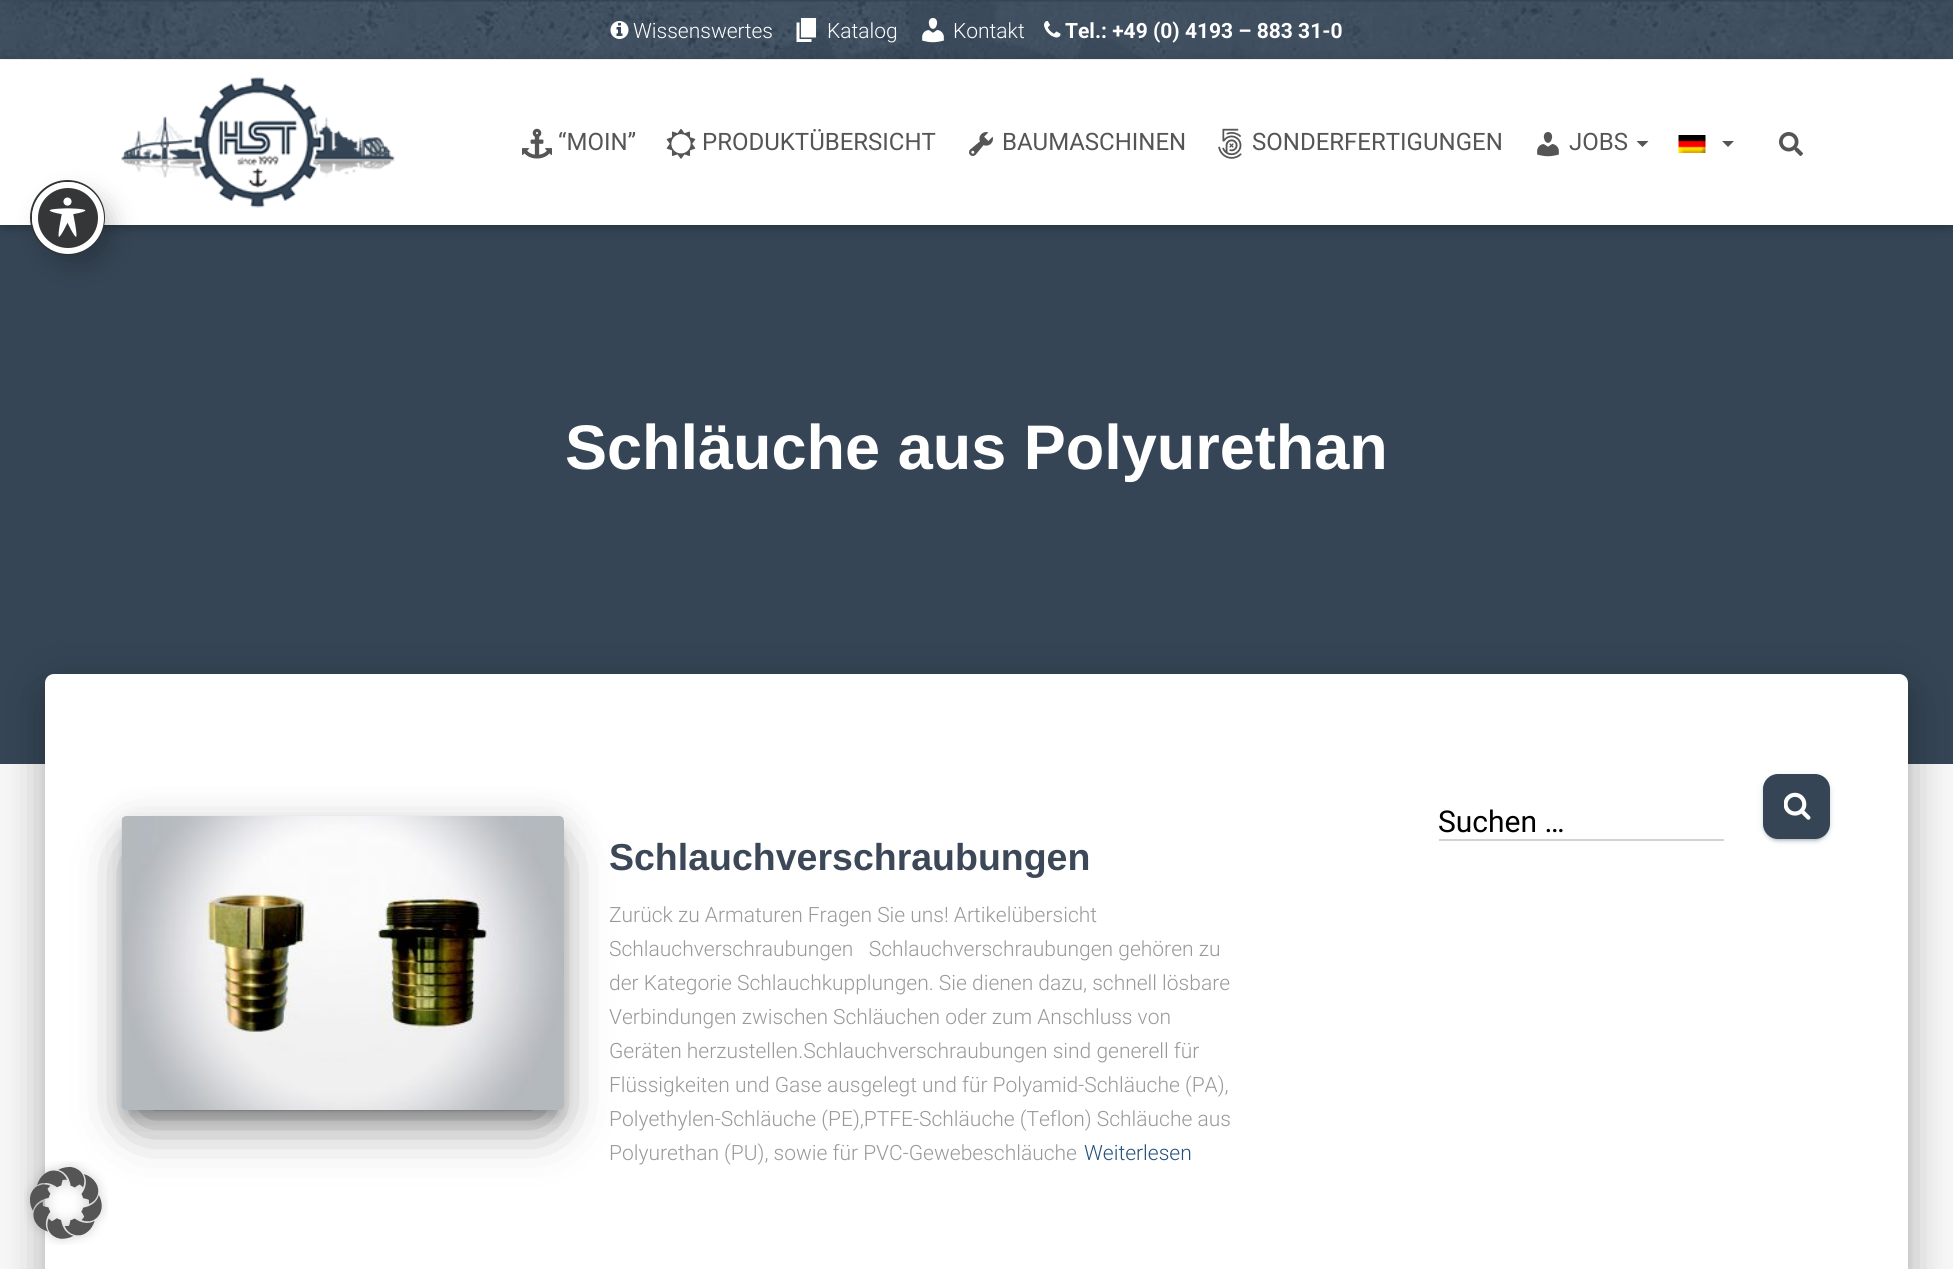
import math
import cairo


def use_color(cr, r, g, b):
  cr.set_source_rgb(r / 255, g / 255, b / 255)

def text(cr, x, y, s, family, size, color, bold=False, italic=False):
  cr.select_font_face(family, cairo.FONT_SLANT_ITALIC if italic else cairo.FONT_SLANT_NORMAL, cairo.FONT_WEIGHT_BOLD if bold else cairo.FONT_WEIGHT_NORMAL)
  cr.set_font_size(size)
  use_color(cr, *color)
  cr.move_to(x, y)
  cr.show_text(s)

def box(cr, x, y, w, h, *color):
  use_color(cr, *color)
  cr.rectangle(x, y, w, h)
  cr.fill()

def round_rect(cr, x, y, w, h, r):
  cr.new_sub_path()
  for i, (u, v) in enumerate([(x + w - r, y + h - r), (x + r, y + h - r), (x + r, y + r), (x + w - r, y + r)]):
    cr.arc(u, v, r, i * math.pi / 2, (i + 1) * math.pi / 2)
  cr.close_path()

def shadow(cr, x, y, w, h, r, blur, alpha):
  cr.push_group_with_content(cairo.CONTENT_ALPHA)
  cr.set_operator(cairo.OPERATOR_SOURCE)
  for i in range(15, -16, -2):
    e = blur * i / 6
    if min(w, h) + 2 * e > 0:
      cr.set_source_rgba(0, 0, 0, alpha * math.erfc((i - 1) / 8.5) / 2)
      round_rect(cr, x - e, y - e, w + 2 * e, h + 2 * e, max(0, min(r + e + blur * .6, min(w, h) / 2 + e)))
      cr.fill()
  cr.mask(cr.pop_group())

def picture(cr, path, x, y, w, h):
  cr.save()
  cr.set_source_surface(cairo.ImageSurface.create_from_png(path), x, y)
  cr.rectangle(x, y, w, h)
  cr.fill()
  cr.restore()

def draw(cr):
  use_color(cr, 247, 247, 247)
  cr.paint()
  picture(cr, "img_02.png", 0, 0, 1953, 59)
  box(cr, 0, 59, 1953, 1, 255, 255, 255)
  box(cr, 0, 225, 1953, 539, 53, 69, 85)
  use_color(cr, 0, 0, 0)
  shadow(cr, 3, 69, 1947, 159, 0, 4, 0.1)
  picture(cr, "img_03.png", 610, 21, 19, 18)
  picture(cr, "img_04.png", 796, 18, 21, 24)
  picture(cr, "img_05.png", 922, 18, 22, 25)
  shadow(cr, 0, 62, 1953, 165, 0, 7.5, 0.12)
  shadow(cr, 9, 71, 1935, 147, 0, 7.5, 0.42)
  box(cr, 0, 60, 1953, 165, 255, 255, 255)
  cr.arc(67.5, 217.5, 36.5, 0, 2 * math.pi)
  use_color(cr, 53, 54, 55)
  cr.stroke()
  picture(cr, "img_07.png", 121, 77, 274, 131)
  use_color(cr, 0, 0, 0)
  shadow(cr, 41, 194, 72, 72, 36, 12, 0.2)
  use_color(cr, 53, 54, 55)
  cr.arc(68, 218, 33, 0, 2 * math.pi)
  cr.fill_preserve()
  use_color(cr, 255, 255, 255)
  cr.set_line_width(6)
  cr.stroke()
  picture(cr, "img_01.png", 49, 197, 37, 40)
  picture(cr, "img_06.png", 1044, 21, 17, 17)
  picture(cr, "img_08.png", 522, 128, 30, 31)
  picture(cr, "img_09.png", 666, 128, 30, 31)
  picture(cr, "img_10.png", 969, 132, 24, 24)
  picture(cr, "img_11.png", 1218, 128, 24, 31)
  picture(cr, "img_12.png", 1537, 132, 22, 25)
  use_color(cr, 85, 85, 85)
  cr.new_path()
  cr.move_to(1636.5, 141)
  cr.line_to(1648.5, 141)
  cr.line_to(1642.5, 147)
  cr.close_path()
  cr.fill()
  picture(cr, "img_13.png", 1678, 135, 28, 18)
  cr.new_path()
  cr.move_to(1722, 141)
  cr.line_to(1734, 141)
  cr.line_to(1728, 147)
  cr.close_path()
  cr.fill()
  picture(cr, "img_14.png", 1779, 132, 24, 24)
  use_color(cr, 0, 0, 0)
  shadow(cr, 53, 693, 1848, 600, 1.5, 7.5, 0.2)
  shadow(cr, 38, 675, 1878, 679, 17, 22.5, 0.12)
  shadow(cr, 42, 695, 1869, 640, 12, 18, 0.14)
  use_color(cr, 255, 255, 255)
  cr.new_path()
  cr.move_to(54, 674)
  cr.line_to(1899, 674)
  cr.curve_to(1904, 674, 1908, 678, 1908, 683)
  cr.line_to(1908, 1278)
  cr.line_to(45, 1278)
  cr.line_to(45, 683)
  cr.curve_to(45, 678, 49, 674, 54, 674)
  cr.close_path()
  cr.fill()
  box(cr, 1439, 839, 285, 2, 210, 210, 210)
  use_color(cr, 53, 69, 85)
  shadow(cr, 1763, 776, 67, 64, 15, 4, 0.12)
  shadow(cr, 1766, 782, 61, 58, 12, 1, 0.2)
  shadow(cr, 1763, 777, 67, 65, 15, 1.5, 0.14)
  use_color(cr, 53, 69, 85)
  round_rect(cr, 1763, 774, 67, 65, 15)
  cr.fill()
  picture(cr, "img_15.png", 1784, 792, 27, 28)
  use_color(cr, 0, 0, 0)
  shadow(cr, 129, 836, 428, 279, 0, 7.5, 0.2)
  shadow(cr, 122, 822, 442, 294, 5, 19, 0.12)
  shadow(cr, 140, 858, 406, 258, 0, 28.5, 0.56)
  picture(cr, "img_16.png", 121, 816, 443, 294)
  picture(cr, "img_17.png", 24, 1161, 84, 84)
  text(cr, 633, 38, "Wissenswertes", "Roboto Light", 21, (255, 255, 255))
  text(cr, 827, 38, "Katalog", "Roboto Light", 21, (255, 255, 255))
  text(cr, 953, 38, "Kontakt", "Roboto Light", 21, (255, 255, 255))
  text(cr, 1065, 38, "Tel.: +49 (0) 4193 – 883 31-0", "Roboto", 21, (255, 255, 255), bold=True)
  text(cr, 558, 150, "“MOIN”", "Roboto", 24, (85, 85, 85))
  text(cr, 702, 150, "PRODUKTÜBERSICHT", "Roboto", 24, (85, 85, 85))
  text(cr, 1002, 150, "BAUMASCHINEN", "Roboto", 24, (85, 85, 85))
  text(cr, 1252, 150, "SONDERFERTIGUNGEN", "Roboto", 24, (85, 85, 85))
  text(cr, 1569, 150, "JOBS", "Roboto", 24, (85, 85, 85))
  text(cr, 565, 469, "Schläuche aus Polyurethan", "Liberation Sans", 63, (255, 255, 255), bold=True)
  text(cr, 1438, 832, "Suchen …", "Roboto", 30, (0, 0, 0))
  text(cr, 609, 870, "Schlauchverschraubungen", "Liberation Sans", 37.5, (60, 72, 88), bold=True)
  text(cr, 609, 922, "Zurück zu Armaturen Fragen Sie uns! Artikelübersicht", "Roboto Light", 21, (153, 153, 153))
  text(cr, 609, 956, "Schlauchverschraubungen   Schlauchverschraubungen gehören zu", "Roboto Light", 21, (153, 153, 153))
  text(cr, 609, 990, "der Kategorie Schlauchkupplungen. Sie dienen dazu, schnell lösbare", "Roboto Light", 21, (153, 153, 153))
  text(cr, 609, 1024, "Verbindungen zwischen Schläuchen oder zum Anschluss von", "Roboto Light", 21, (153, 153, 153))
  text(cr, 609, 1058, "Geräten herzustellen.Schlauchverschraubungen sind generell für", "Roboto Light", 21, (153, 153, 153))
  text(cr, 609, 1092, "Flüssigkeiten und Gase ausgelegt und für Polyamid-Schläuche (PA),", "Roboto Light", 21, (153, 153, 153))
  text(cr, 609, 1126, "Polyethylen-Schläuche (PE),PTFE-Schläuche (Teflon) Schläuche aus", "Roboto Light", 21, (153, 153, 153))
  text(cr, 609, 1160, "Polyurethan (PU), sowie für PVC-Gewebeschläuche", "Roboto Light", 21, (153, 153, 153))
  text(cr, 1084, 1160, "Weiterlesen", "Roboto Light", 21, (35, 82, 124))


surface = cairo.ImageSurface(cairo.FORMAT_RGB24, 1953, 1269)
cr = cairo.Context(surface)
options = cairo.FontOptions()
options.set_hint_metrics(cairo.HINT_METRICS_OFF)
options.set_hint_style(cairo.HINT_STYLE_NONE)
cr.set_font_options(options)
cr.set_miter_limit(4)
draw(cr)
surface.write_to_png("out.png")
